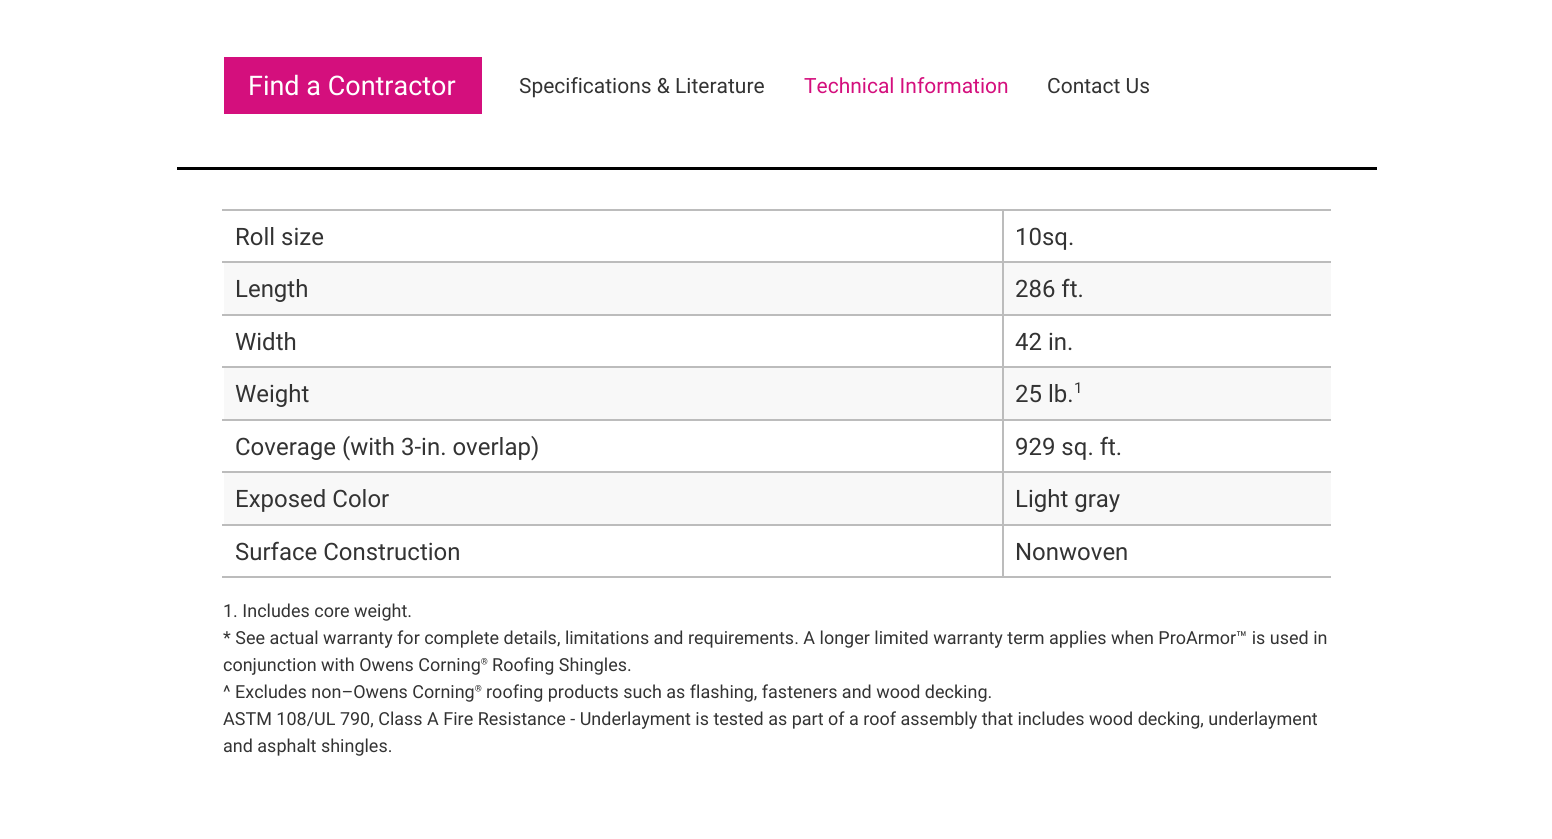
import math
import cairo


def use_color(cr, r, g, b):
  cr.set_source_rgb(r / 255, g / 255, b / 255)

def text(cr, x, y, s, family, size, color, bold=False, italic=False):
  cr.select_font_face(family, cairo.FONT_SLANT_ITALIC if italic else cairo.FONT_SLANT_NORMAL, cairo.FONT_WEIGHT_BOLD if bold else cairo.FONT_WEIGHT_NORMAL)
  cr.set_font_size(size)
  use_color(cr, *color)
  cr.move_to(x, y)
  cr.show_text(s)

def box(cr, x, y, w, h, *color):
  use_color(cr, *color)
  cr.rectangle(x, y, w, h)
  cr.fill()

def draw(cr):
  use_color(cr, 255, 255, 255)
  cr.paint()
  box(cr, 177, 167, 1200, 3, 0, 0, 0)
  box(cr, 224, 57, 258, 57, 212, 15, 125)
  box(cr, 1002, 209, 329, 2, 188, 188, 188)
  box(cr, 1002, 261, 329, 2, 188, 188, 188)
  box(cr, 224, 263, 1107, 51, 248, 248, 248)
  box(cr, 1002, 314, 329, 2, 188, 188, 188)
  box(cr, 1002, 366, 329, 2, 188, 188, 188)
  box(cr, 224, 368, 1107, 51, 248, 248, 248)
  box(cr, 1002, 419, 329, 2, 188, 188, 188)
  box(cr, 1002, 471, 329, 2, 188, 188, 188)
  box(cr, 224, 473, 1107, 51, 248, 248, 248)
  box(cr, 1002, 524, 329, 2, 188, 188, 188)
  box(cr, 1002, 576, 329, 2, 188, 188, 188)
  box(cr, 1002, 524, 2, 54, 188, 188, 188)
  box(cr, 222, 524, 782, 2, 188, 188, 188)
  box(cr, 1002, 471, 2, 54, 188, 188, 188)
  box(cr, 222, 471, 782, 2, 188, 188, 188)
  box(cr, 1002, 419, 2, 54, 188, 188, 188)
  box(cr, 222, 419, 782, 2, 188, 188, 188)
  box(cr, 1002, 366, 2, 54, 188, 188, 188)
  box(cr, 222, 366, 782, 2, 188, 188, 188)
  box(cr, 1002, 314, 2, 54, 188, 188, 188)
  box(cr, 222, 314, 782, 2, 188, 188, 188)
  box(cr, 1002, 261, 2, 54, 188, 188, 188)
  box(cr, 222, 261, 782, 2, 188, 188, 188)
  box(cr, 1002, 209, 2, 54, 188, 188, 188)
  box(cr, 222, 209, 782, 2, 188, 188, 188)
  box(cr, 222, 576, 782, 2, 188, 188, 188)
  text(cr, 248, 95, "Find a Contractor", "Roboto", 27, (255, 255, 255))
  text(cr, 519, 93, "Specifications & Literature", "Roboto", 21, (51, 51, 51))
  text(cr, 804, 93, "Technical Information", "Roboto", 21, (212, 15, 125))
  text(cr, 1047, 93, "Contact Us", "Roboto", 21, (51, 51, 51))
  text(cr, 235, 245, "Roll size", "Roboto", 24, (51, 51, 51))
  text(cr, 1015, 245, "10sq.", "Roboto", 24, (51, 51, 51))
  text(cr, 235, 297, "Length", "Roboto", 24, (51, 51, 51))
  text(cr, 1015, 297, "286 ft.", "Roboto", 24, (51, 51, 51))
  text(cr, 235, 350, "Width", "Roboto", 24, (51, 51, 51))
  text(cr, 1015, 350, "42 in.", "Roboto", 24, (51, 51, 51))
  text(cr, 235, 402, "Weight", "Roboto", 24, (51, 51, 51))
  text(cr, 1015, 402, "25 lb.", "Roboto", 24, (51, 51, 51))
  text(cr, 1074, 393, "1", "Roboto", 15, (51, 51, 51))
  text(cr, 235, 455, "Coverage (with 3-in. overlap)", "Roboto", 24, (51, 51, 51))
  text(cr, 1015, 455, "929 sq. ft.", "Roboto", 24, (51, 51, 51))
  text(cr, 235, 507, "Exposed Color", "Roboto", 24, (51, 51, 51))
  text(cr, 1015, 507, "Light gray", "Roboto", 24, (51, 51, 51))
  text(cr, 235, 560, "Surface Construction", "Roboto", 24, (51, 51, 51))
  text(cr, 1015, 560, "Nonwoven", "Roboto", 24, (51, 51, 51))
  text(cr, 223, 617, "1. Includes core weight.", "Roboto", 18, (51, 51, 51))
  text(cr, 223, 644, "* See actual warranty for complete details, limitations and requirements. A longer limited warranty term applies when ProArmor™ is used in", "Roboto", 18, (51, 51, 51))
  text(cr, 223, 671, "conjunction with Owens Corning® Roofing Shingles.", "Roboto", 18, (51, 51, 51))
  text(cr, 223, 698, "^ Excludes non–Owens Corning® roofing products such as flashing, fasteners and wood decking.", "Roboto", 18, (51, 51, 51))
  text(cr, 223, 725, "ASTM 108/UL 790, Class A Fire Resistance - Underlayment is tested as part of a roof assembly that includes wood decking, underlayment", "Roboto", 18, (51, 51, 51))
  text(cr, 223, 752, "and asphalt shingles.", "Roboto", 18, (51, 51, 51))


surface = cairo.ImageSurface(cairo.FORMAT_RGB24, 1552, 839)
cr = cairo.Context(surface)
options = cairo.FontOptions()
options.set_hint_metrics(cairo.HINT_METRICS_OFF)
options.set_hint_style(cairo.HINT_STYLE_NONE)
cr.set_font_options(options)
cr.set_miter_limit(4)
draw(cr)
surface.write_to_png("out.png")
